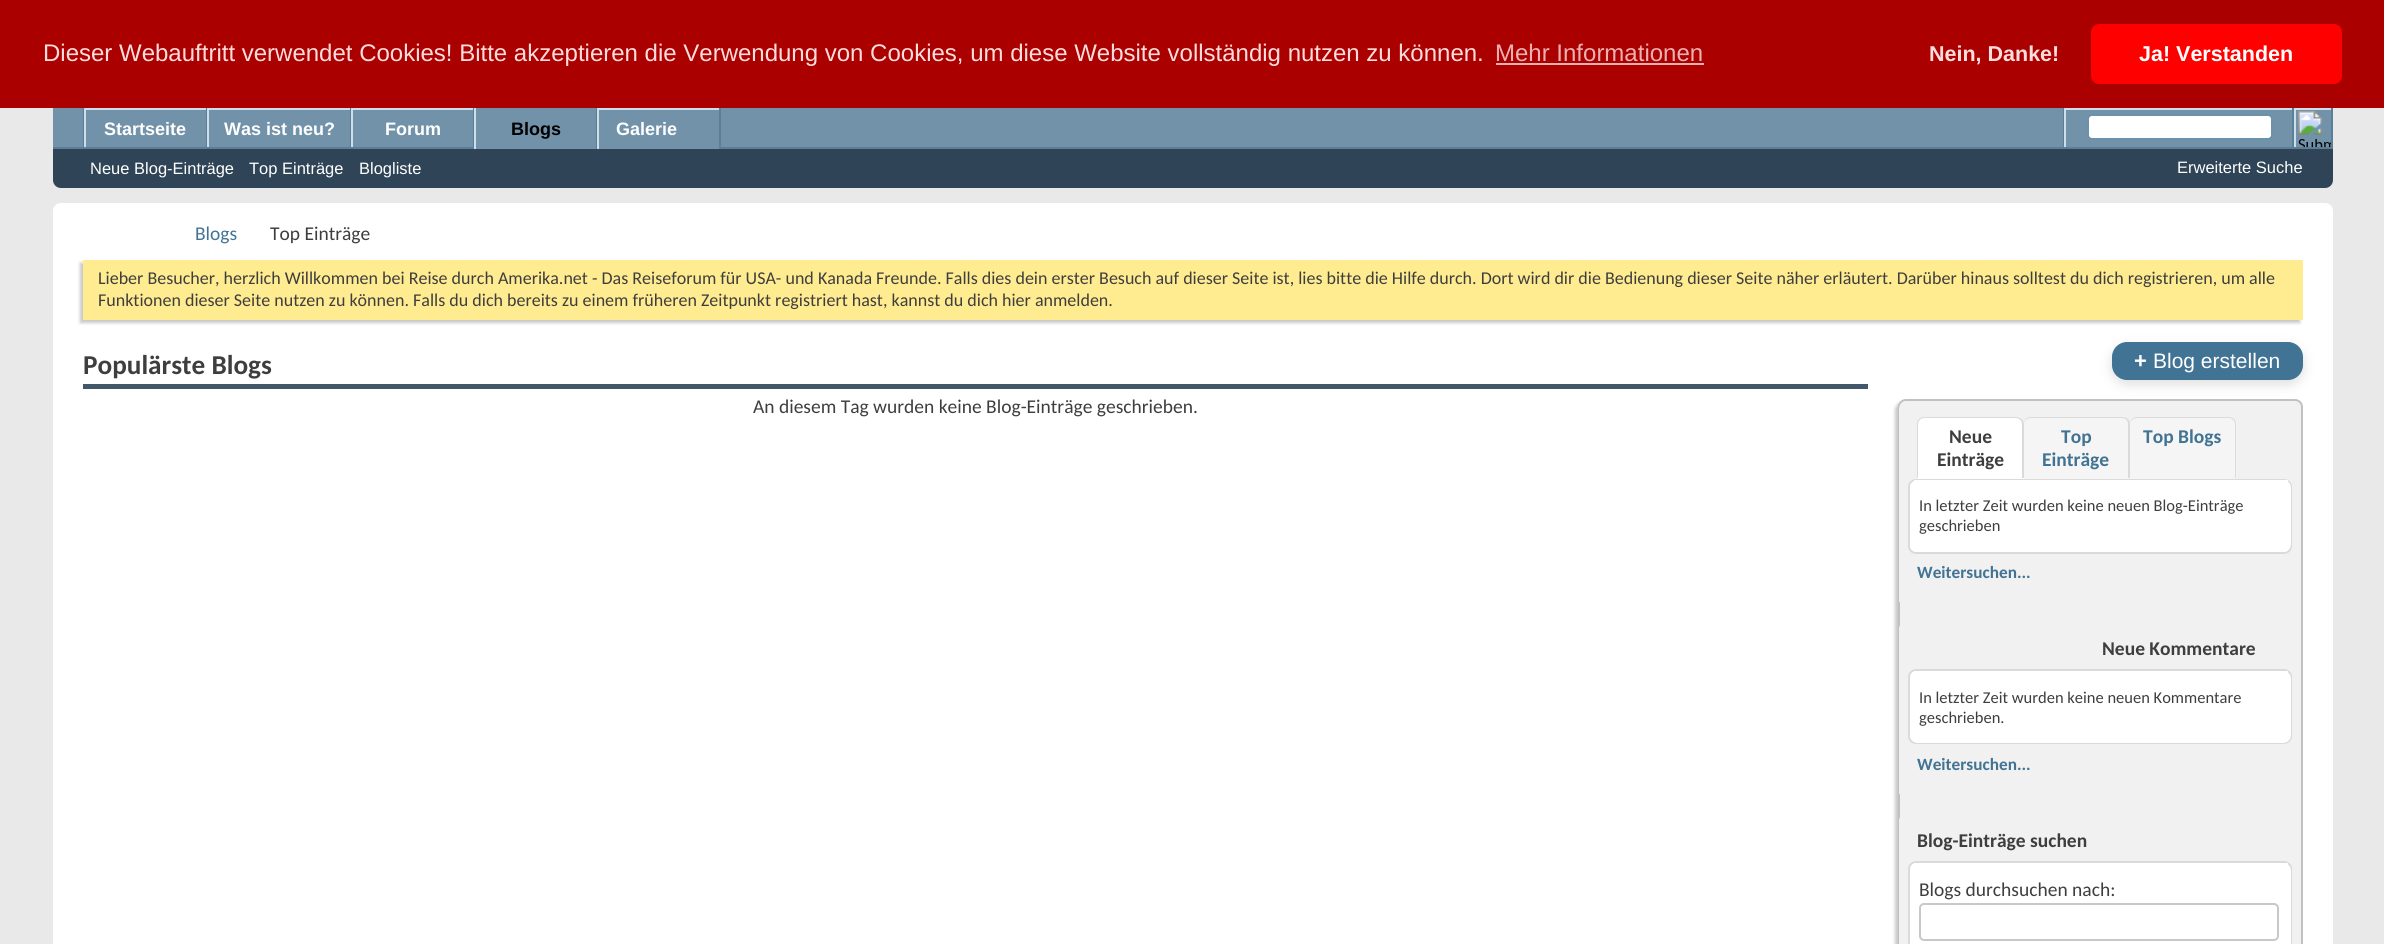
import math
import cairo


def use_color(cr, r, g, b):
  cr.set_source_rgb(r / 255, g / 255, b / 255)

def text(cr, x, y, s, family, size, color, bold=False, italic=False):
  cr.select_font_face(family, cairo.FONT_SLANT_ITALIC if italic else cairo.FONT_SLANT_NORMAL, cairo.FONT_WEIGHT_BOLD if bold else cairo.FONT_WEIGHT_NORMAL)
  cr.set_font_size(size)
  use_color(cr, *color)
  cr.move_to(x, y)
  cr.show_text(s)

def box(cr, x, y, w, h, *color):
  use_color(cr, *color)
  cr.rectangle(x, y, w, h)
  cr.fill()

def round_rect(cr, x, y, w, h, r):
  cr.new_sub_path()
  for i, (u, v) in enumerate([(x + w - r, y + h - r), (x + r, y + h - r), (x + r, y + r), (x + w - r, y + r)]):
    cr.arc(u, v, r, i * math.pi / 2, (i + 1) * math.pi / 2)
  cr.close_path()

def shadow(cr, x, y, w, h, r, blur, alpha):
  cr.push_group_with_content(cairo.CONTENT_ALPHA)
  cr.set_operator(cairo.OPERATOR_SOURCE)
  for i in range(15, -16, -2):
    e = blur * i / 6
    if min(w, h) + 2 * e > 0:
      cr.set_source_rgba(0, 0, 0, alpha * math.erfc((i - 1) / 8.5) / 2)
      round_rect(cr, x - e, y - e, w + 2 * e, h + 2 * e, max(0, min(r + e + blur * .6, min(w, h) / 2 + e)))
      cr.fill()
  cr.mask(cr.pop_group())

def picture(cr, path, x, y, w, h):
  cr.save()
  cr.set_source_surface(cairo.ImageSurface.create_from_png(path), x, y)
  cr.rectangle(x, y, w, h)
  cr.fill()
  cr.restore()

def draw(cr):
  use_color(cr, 233, 233, 233)
  cr.paint()
  use_color(cr, 47, 68, 86)
  cr.new_path()
  cr.move_to(53, 108)
  cr.line_to(2333, 108)
  cr.line_to(2333, 180)
  cr.curve_to(2333, 184.5, 2329.5, 188, 2325, 188)
  cr.line_to(61, 188)
  cr.curve_to(56.5, 188, 53, 184.5, 53, 180)
  cr.close_path()
  cr.fill()
  box(cr, 53, 108, 2278, 39, 113, 146, 168)
  box(cr, 206, 108, 1, 41, 90, 127, 151)
  box(cr, 83, 108, 1, 41, 90, 127, 151)
  box(cr, 84, 108, 122, 2, 206, 223, 235)
  box(cr, 84, 108, 2, 41, 206, 223, 235)
  box(cr, 350, 108, 1, 41, 90, 127, 151)
  box(cr, 207, 108, 143, 2, 206, 223, 235)
  box(cr, 207, 108, 2, 41, 206, 223, 235)
  box(cr, 473, 108, 1, 41, 90, 127, 151)
  box(cr, 351, 108, 122, 2, 206, 223, 235)
  box(cr, 351, 108, 2, 41, 206, 223, 235)
  box(cr, 53, 147, 2280, 2, 90, 127, 151)
  box(cr, 474, 102, 2, 47, 206, 223, 235)
  box(cr, 0, 0, 2384, 108, 170, 0, 0)
  box(cr, 1496, 63, 208, 2, 238, 177, 177)
  use_color(cr, 255, 0, 0)
  round_rect(cr, 2091, 24, 251, 60, 8)
  cr.fill()
  box(cr, 596, 108, 1, 39, 90, 127, 151)
  box(cr, 476, 147, 120, 2, 113, 146, 168)
  box(cr, 719, 108, 2, 41, 90, 127, 151)
  box(cr, 599, 147, 120, 2, 113, 146, 168)
  box(cr, 597, 108, 122, 2, 206, 223, 235)
  box(cr, 597, 108, 2, 41, 206, 223, 235)
  box(cr, 2063, 108, 1, 39, 90, 127, 151)
  box(cr, 2064, 108, 228, 2, 206, 223, 235)
  box(cr, 2064, 108, 2, 39, 206, 223, 235)
  use_color(cr, 255, 255, 255)
  round_rect(cr, 2088, 115, 184, 24, 4)
  cr.fill_preserve()
  use_color(cr, 107, 145, 171)
  cr.stroke()
  box(cr, 2331, 108, 2, 39, 90, 127, 151)
  box(cr, 2292, 108, 2, 39, 90, 127, 151)
  box(cr, 2294, 108, 37, 2, 206, 223, 235)
  box(cr, 2294, 108, 2, 39, 206, 223, 235)
  picture(cr, "img_01.png", 2298, 111, 33, 36)
  use_color(cr, 255, 255, 255)
  round_rect(cr, 53, 203, 2280, 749, 8)
  cr.fill()
  use_color(cr, 200, 200, 200)
  shadow(cr, 80, 263, 2220, 60, 0, 1.5, 1)
  box(cr, 83, 260, 2220, 60, 255, 235, 144)
  box(cr, 83, 384, 1785, 5, 66, 87, 105)
  use_color(cr, 200, 200, 200)
  shadow(cr, 1895, 402, 405, 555, 8, 1.5, 1)
  use_color(cr, 241, 241, 241)
  round_rect(cr, 1899, 400, 403, 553, 7)
  cr.fill_preserve()
  use_color(cr, 193, 193, 193)
  cr.stroke()
  use_color(cr, 241, 241, 241)
  cr.new_path()
  cr.move_to(1907, 401)
  cr.line_to(2293, 401)
  cr.curve_to(2297.5, 401, 2301, 404.5, 2301, 409)
  cr.line_to(2301, 602)
  cr.line_to(1899, 602)
  cr.line_to(1899, 409)
  cr.curve_to(1899, 404.5, 1902.5, 401, 1907, 401)
  cr.close_path()
  cr.fill()
  use_color(cr, 221, 221, 221)
  shadow(cr, 2112, 347, 191, 37, 15, 6, 1)
  use_color(cr, 65, 115, 148)
  round_rect(cr, 2112, 342, 191, 38, 15)
  cr.fill()
  use_color(cr, 255, 255, 255)
  cr.new_path()
  cr.move_to(1925, 417)
  cr.line_to(2016, 417)
  cr.curve_to(2020.5, 417, 2024, 420.5, 2024, 425)
  cr.line_to(2024, 479)
  cr.line_to(1917, 479)
  cr.line_to(1917, 425)
  cr.curve_to(1917, 420.5, 1920.5, 417, 1925, 417)
  cr.close_path()
  cr.fill()
  use_color(cr, 218, 218, 218)
  cr.set_fill_rule(cairo.FILL_RULE_EVEN_ODD)
  cr.new_path()
  cr.move_to(1924, 417)
  cr.line_to(2016, 417)
  cr.curve_to(2020, 417, 2024, 420, 2024, 424)
  cr.line_to(2024, 478)
  cr.line_to(1917, 478)
  cr.line_to(1917, 424)
  cr.curve_to(1917, 420, 1920, 417, 1924, 417)
  cr.close_path()
  cr.move_to(1924, 418)
  cr.line_to(2016, 418)
  cr.curve_to(2019, 418, 2022, 421, 2022, 424)
  cr.line_to(2022, 478)
  cr.line_to(1918, 478)
  cr.line_to(1918, 424)
  cr.curve_to(1918, 421, 1921, 418, 1924, 418)
  cr.close_path()
  cr.fill()
  use_color(cr, 245, 245, 245)
  cr.new_path()
  cr.move_to(2032, 417)
  cr.line_to(2122, 417)
  cr.curve_to(2126.5, 417, 2130, 420.5, 2130, 425)
  cr.line_to(2130, 479)
  cr.line_to(2024, 479)
  cr.line_to(2024, 425)
  cr.curve_to(2024, 420.5, 2027.5, 417, 2032, 417)
  cr.close_path()
  cr.fill()
  use_color(cr, 218, 218, 218)
  cr.new_path()
  cr.move_to(2031, 417)
  cr.line_to(2122, 417)
  cr.curve_to(2127, 417, 2130, 420, 2130, 424)
  cr.line_to(2130, 478)
  cr.line_to(2024, 478)
  cr.line_to(2024, 424)
  cr.curve_to(2024, 420, 2027, 417, 2031, 417)
  cr.close_path()
  cr.move_to(2031, 418)
  cr.line_to(2122, 418)
  cr.curve_to(2126, 418, 2128, 421, 2128, 424)
  cr.line_to(2128, 478)
  cr.line_to(2024, 478)
  cr.line_to(2024, 424)
  cr.curve_to(2024, 421, 2027, 418, 2031, 418)
  cr.close_path()
  cr.fill()
  use_color(cr, 245, 245, 245)
  cr.new_path()
  cr.move_to(2138, 417)
  cr.line_to(2229, 417)
  cr.curve_to(2233.5, 417, 2237, 420.5, 2237, 425)
  cr.line_to(2237, 479)
  cr.line_to(2130, 479)
  cr.line_to(2130, 425)
  cr.curve_to(2130, 420.5, 2133.5, 417, 2138, 417)
  cr.close_path()
  cr.fill()
  use_color(cr, 218, 218, 218)
  cr.new_path()
  cr.move_to(2138, 417)
  cr.line_to(2229, 417)
  cr.curve_to(2233, 417, 2236, 420, 2236, 424)
  cr.line_to(2236, 478)
  cr.line_to(2130, 478)
  cr.line_to(2130, 424)
  cr.curve_to(2130, 420, 2133, 417, 2138, 417)
  cr.close_path()
  cr.move_to(2138, 418)
  cr.line_to(2229, 418)
  cr.curve_to(2232, 418, 2235, 421, 2235, 424)
  cr.line_to(2235, 478)
  cr.line_to(2130, 478)
  cr.line_to(2130, 424)
  cr.curve_to(2130, 421, 2133, 418, 2138, 418)
  cr.close_path()
  cr.fill()
  use_color(cr, 255, 255, 255)
  round_rect(cr, 1909, 480, 382, 73, 7)
  cr.fill_preserve()
  use_color(cr, 218, 218, 218)
  cr.stroke()
  use_color(cr, 255, 255, 255)
  round_rect(cr, 1910, 480, 381, 72, 8)
  cr.fill()
  box(cr, 1914, 480, 374, 2, 255, 255, 255)
  use_color(cr, 241, 241, 241)
  cr.new_path()
  cr.move_to(1907, 621)
  cr.line_to(2293, 621)
  cr.curve_to(2297.5, 621, 2301, 624.5, 2301, 629)
  cr.line_to(2301, 794)
  cr.line_to(1899, 794)
  cr.line_to(1899, 629)
  cr.curve_to(1899, 624.5, 1902.5, 621, 1907, 621)
  cr.close_path()
  cr.fill()
  use_color(cr, 255, 255, 255)
  round_rect(cr, 1909, 670, 382, 73, 7)
  cr.fill_preserve()
  use_color(cr, 218, 218, 218)
  cr.stroke()
  use_color(cr, 255, 255, 255)
  round_rect(cr, 1910, 671, 381, 72, 8)
  cr.fill()
  box(cr, 1914, 671, 374, 2, 255, 255, 255)
  use_color(cr, 241, 241, 241)
  cr.new_path()
  cr.move_to(1907, 813)
  cr.line_to(2293, 813)
  cr.curve_to(2297.5, 813, 2301, 816.5, 2301, 821)
  cr.line_to(2301, 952)
  cr.line_to(1899, 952)
  cr.line_to(1899, 821)
  cr.curve_to(1899, 816.5, 1902.5, 813, 1907, 813)
  cr.close_path()
  cr.fill()
  use_color(cr, 255, 255, 255)
  round_rect(cr, 1909, 862, 382, 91, 7)
  cr.fill_preserve()
  use_color(cr, 218, 218, 218)
  cr.stroke()
  use_color(cr, 255, 255, 255)
  round_rect(cr, 1910, 863, 381, 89, 8)
  cr.fill()
  box(cr, 1914, 863, 374, 2, 255, 255, 255)
  round_rect(cr, 1920, 904, 358, 36, 4)
  use_color(cr, 200, 200, 200)
  cr.stroke()
  text(cr, 43, 61, "Dieser Webauftritt verwendet Cookies! Bitte akzeptieren die Verwendung von Cookies, um diese Website vollständig nutzen zu können.", "Liberation Sans", 24, (255, 221, 221))
  text(cr, 1495, 61, "Mehr Informationen", "Liberation Sans", 24, (238, 177, 177))
  text(cr, 1929, 61, "Nein, Danke!", "Liberation Sans", 21.5, (255, 221, 221), bold=True)
  text(cr, 2139, 61, "Ja! Verstanden", "Liberation Sans", 21.5, (255, 255, 255), bold=True)
  text(cr, 104, 135, "Startseite", "Liberation Sans", 18, (255, 255, 255), bold=True)
  text(cr, 224, 135, "Was ist neu?", "Liberation Sans", 18, (255, 255, 255), bold=True)
  text(cr, 385, 135, "Forum", "Liberation Sans", 18, (255, 255, 255), bold=True)
  text(cr, 511, 135, "Blogs", "Liberation Sans", 18, (0, 0, 0), bold=True)
  text(cr, 616, 135, "Galerie", "Liberation Sans", 18, (255, 255, 255), bold=True)
  text(cr, 90, 174, "Neue Blog-Einträge", "Liberation Sans", 16.5, (255, 255, 255))
  text(cr, 249, 174, "Top Einträge", "Liberation Sans", 16.5, (255, 255, 255))
  text(cr, 359, 174, "Blogliste", "Liberation Sans", 16.5, (255, 255, 255))
  text(cr, 2177, 173, "Erweiterte Suche", "Liberation Sans", 16.5, (255, 255, 255))
  text(cr, 195, 240, "Blogs", "Carlito", 19.5, (65, 115, 148))
  text(cr, 270, 240, "Top Einträge", "Carlito", 19.5, (62, 62, 62))
  text(cr, 98, 284, "Lieber Besucher, herzlich Willkommen bei Reise durch Amerika.net - Das Reiseforum für USA- und Kanada Freunde. Falls dies dein erster Besuch auf dieser Seite ist, lies bitte die Hilfe durch. Dort wird dir die Bedienung dieser Seite näher erläutert. Darüber hinaus solltest du dich registrieren, um alle", "Carlito", 18, (62, 62, 62))
  text(cr, 98, 306, "Funktionen dieser Seite nutzen zu können. Falls du dich bereits zu einem früheren Zeitpunkt registriert hast, kannst du dich hier anmelden.", "Carlito", 18, (62, 62, 62))
  text(cr, 83, 374, "Populärste Blogs", "Carlito", 27.25, (62, 62, 62), bold=True)
  text(cr, 753, 413, "An diesem Tag wurden keine Blog-Einträge geschrieben.", "Carlito", 19.5, (62, 62, 62))
  text(cr, 2134, 368, "+", "Liberation Sans", 22, (255, 255, 255), bold=True)
  text(cr, 2153, 368, "Blog erstellen", "Liberation Sans", 21, (255, 255, 255))
  text(cr, 1949, 443, "Neue", "Carlito", 19.5, (62, 62, 62), bold=True)
  text(cr, 1937, 466, "Einträge", "Carlito", 19.5, (62, 62, 62), bold=True)
  text(cr, 2061, 443, "Top", "Carlito", 19.5, (65, 115, 148), bold=True)
  text(cr, 2042, 466, "Einträge", "Carlito", 19.5, (65, 115, 148), bold=True)
  text(cr, 2143, 443, "Top Blogs", "Carlito", 19.5, (65, 115, 148), bold=True)
  text(cr, 1919, 511, "In letzter Zeit wurden keine neuen Blog-Einträge", "Carlito", 16.5, (62, 62, 62))
  text(cr, 1919, 531, "geschrieben", "Carlito", 16.5, (62, 62, 62))
  text(cr, 1917, 578, "Weitersuchen...", "Carlito", 17.25, (65, 115, 148), bold=True)
  text(cr, 2102, 655, "Neue Kommentare", "Carlito", 19.5, (62, 62, 62), bold=True)
  text(cr, 1919, 703, "In letzter Zeit wurden keine neuen Kommentare", "Carlito", 16.5, (62, 62, 62))
  text(cr, 1919, 723, "geschrieben.", "Carlito", 16.5, (62, 62, 62))
  text(cr, 1917, 770, "Weitersuchen...", "Carlito", 17.25, (65, 115, 148), bold=True)
  text(cr, 1917, 847, "Blog-Einträge suchen", "Carlito", 19.5, (62, 62, 62), bold=True)
  text(cr, 1919, 896, "Blogs durchsuchen nach:", "Carlito", 19.5, (62, 62, 62))


surface = cairo.ImageSurface(cairo.FORMAT_RGB24, 2384, 944)
cr = cairo.Context(surface)
options = cairo.FontOptions()
options.set_hint_metrics(cairo.HINT_METRICS_OFF)
options.set_hint_style(cairo.HINT_STYLE_NONE)
cr.set_font_options(options)
cr.set_miter_limit(4)
draw(cr)
surface.write_to_png("out.png")
